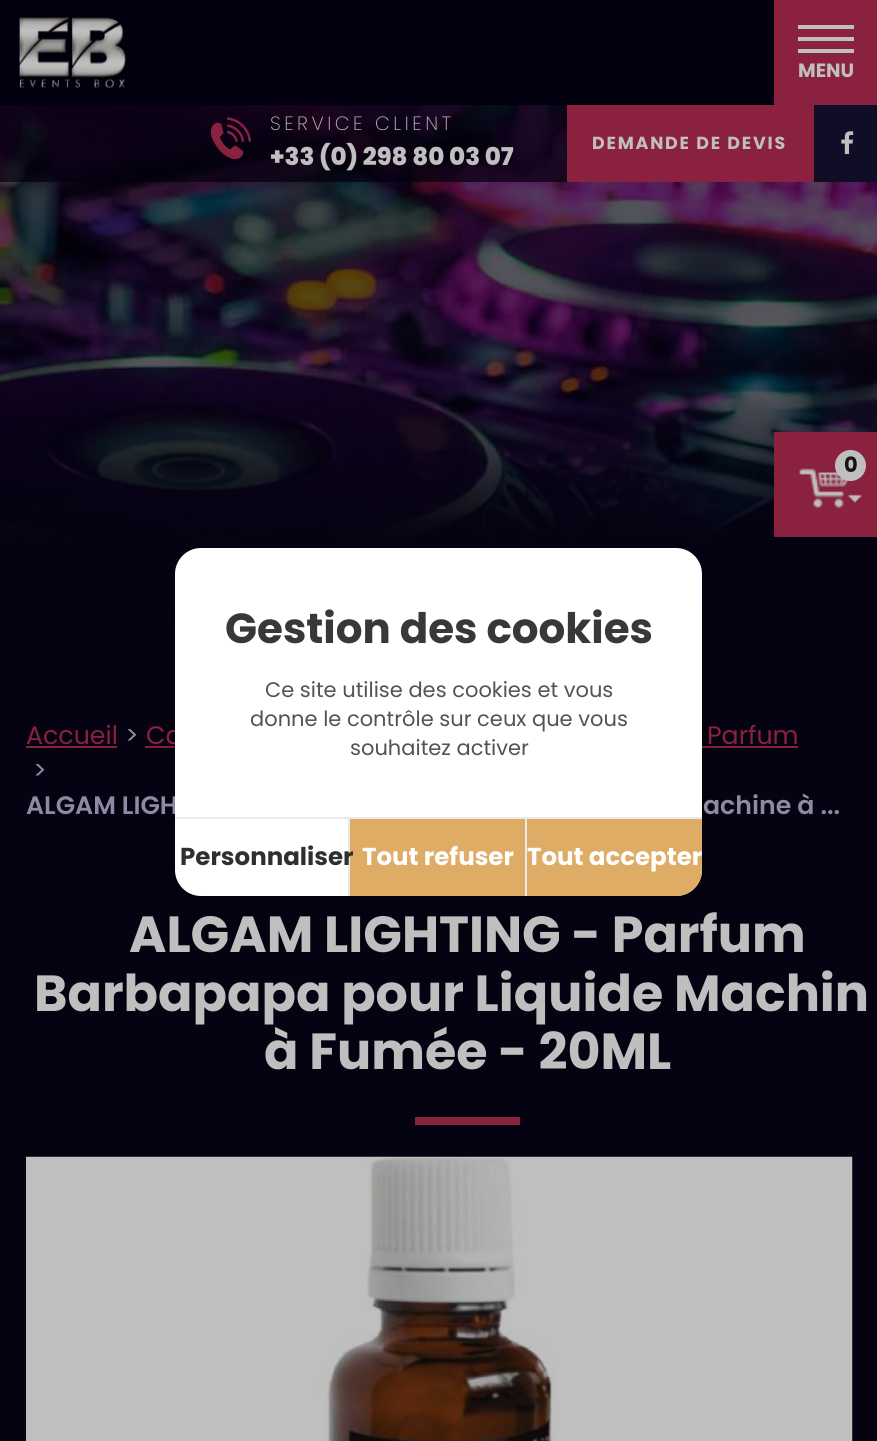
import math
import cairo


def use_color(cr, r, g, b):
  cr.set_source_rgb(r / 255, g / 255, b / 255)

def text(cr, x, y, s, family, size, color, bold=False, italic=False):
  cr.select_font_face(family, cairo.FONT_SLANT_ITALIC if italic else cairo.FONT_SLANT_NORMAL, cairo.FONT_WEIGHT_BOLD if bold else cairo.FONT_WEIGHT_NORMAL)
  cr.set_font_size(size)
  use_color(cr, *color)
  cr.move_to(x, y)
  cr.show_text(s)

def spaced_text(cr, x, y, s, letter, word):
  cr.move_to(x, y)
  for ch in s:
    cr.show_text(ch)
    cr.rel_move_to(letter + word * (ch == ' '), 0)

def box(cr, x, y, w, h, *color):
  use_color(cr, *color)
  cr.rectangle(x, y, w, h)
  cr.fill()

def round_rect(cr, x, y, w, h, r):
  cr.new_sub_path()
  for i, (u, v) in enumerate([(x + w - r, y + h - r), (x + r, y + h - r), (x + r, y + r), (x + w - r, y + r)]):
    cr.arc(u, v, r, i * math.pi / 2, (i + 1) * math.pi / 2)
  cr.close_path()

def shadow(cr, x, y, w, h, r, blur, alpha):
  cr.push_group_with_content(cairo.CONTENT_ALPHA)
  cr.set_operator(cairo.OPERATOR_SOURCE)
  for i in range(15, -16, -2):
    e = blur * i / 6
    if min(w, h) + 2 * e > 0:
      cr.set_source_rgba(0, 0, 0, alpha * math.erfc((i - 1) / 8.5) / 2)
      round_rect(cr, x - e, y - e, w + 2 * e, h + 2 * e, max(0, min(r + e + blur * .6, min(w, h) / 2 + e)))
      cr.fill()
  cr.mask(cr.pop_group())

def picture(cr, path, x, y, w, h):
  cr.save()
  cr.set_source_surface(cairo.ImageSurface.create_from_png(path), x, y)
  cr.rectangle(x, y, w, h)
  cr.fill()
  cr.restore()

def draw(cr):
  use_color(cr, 5, 2, 18)
  cr.paint()
  box(cr, 0, 0, 774, 105, 2, 0, 14)
  box(cr, 774, 0, 103, 105, 138, 33, 62)
  box(cr, 798, 25, 56, 4, 191, 191, 191)
  box(cr, 798, 37, 56, 4, 191, 191, 191)
  box(cr, 798, 49, 56, 4, 191, 191, 191)
  picture(cr, "img_01.png", 19, 17, 109, 71)
  picture(cr, "img_04.png", 0, 105, 877, 437)
  cr.set_source_rgba(0.008, 0, 0.055, 0.7)
  cr.rectangle(0, 105, 567, 77)
  cr.fill()
  picture(cr, "img_02.png", 210, 117, 42, 42)
  box(cr, 567, 105, 247, 77, 138, 33, 62)
  box(cr, 814, 105, 63, 77, 16, 14, 38)
  picture(cr, "img_03.png", 841, 131, 13, 23)
  gradient = cairo.LinearGradient(439, 543, 439, 105)
  gradient.add_color_stop_rgba(0, 0.02, 0.008, 0.071, 1)
  gradient.add_color_stop_rgba(0.35, 0.02, 0.008, 0.071, 0)
  cr.set_source(gradient)
  cr.rectangle(0, 394, 877, 148)
  cr.fill()
  box(cr, 774, 432, 103, 105, 138, 33, 62)
  picture(cr, "img_05.png", 799, 468, 63, 40)
  use_color(cr, 191, 191, 191)
  cr.arc(850.5, 465.5, 15.5, 0, 2 * math.pi)
  cr.fill()
  box(cr, 26, 746, 91, 2, 138, 33, 62)
  box(cr, 145, 746, 30, 2, 138, 33, 62)
  box(cr, 702, 746, 96, 2, 138, 33, 62)
  use_color(cr, 0, 0, 0)
  shadow(cr, 175, 583, 527, 348, 26, 52.5, 0.2)
  box(cr, 415, 1117, 105, 8, 138, 33, 62)
  picture(cr, "img_06.png", 26, 1156, 827, 285)
  text(cr, 798, 77, "MENU", "Poppins", 19.25, (191, 191, 191), bold=True)
  cr.select_font_face("Poppins ExtraLight")
  spaced_text(cr, 270, 130, "SERVICE CLIENT", 3.5, 0)
  text(cr, 270, 165, "+33 (0) 298 80 03 07", "Poppins ExtraBold", 24.5, (191, 191, 191))
  cr.select_font_face("Poppins", cairo.FONT_SLANT_NORMAL, cairo.FONT_WEIGHT_BOLD)
  cr.set_font_size(17.5)
  spaced_text(cr, 592, 149, "DEMANDE DE DEVIS", 1.75, 0)
  text(cr, 844, 472, "0", "Poppins", 21, (21, 21, 21), bold=True)
  text(cr, 26, 744, "Accueil", "Poppins", 25.25, (138, 33, 62))
  text(cr, 125, 744, ">", "Poppins", 25.25, (142, 138, 164))
  text(cr, 146, 744, "Ca", "Poppins", 25.25, (138, 33, 62))
  text(cr, 707, 744, "Parfum", "Poppins", 25.25, (138, 33, 62))
  text(cr, 33, 779, ">", "Poppins", 25.25, (142, 138, 164))
  text(cr, 26, 814, "ALGAM LIGH", "Poppins SemiBold", 25.25, (142, 138, 164))
  use_color(cr, 255, 255, 255)
  round_rect(cr, 175, 548, 527, 348, 26)
  cr.fill()
  text(cr, 350, 755, "souhaitez activer", "Poppins", 21, (83, 83, 83))
  text(cr, 250, 726, "donne le contrôle sur ceux que vous", "Poppins", 21, (83, 83, 83))
  text(cr, 265, 697, "Ce site utilise des cookies et vous", "Poppins", 21, (83, 83, 83))
  use_color(cr, 222, 172, 100)
  cr.new_path()
  cr.move_to(527, 817)
  cr.line_to(702, 817)
  cr.line_to(702, 870)
  cr.curve_to(702, 884.5, 690.5, 896, 676, 896)
  cr.line_to(527, 896)
  cr.close_path()
  cr.fill()
  box(cr, 175, 817, 527, 2, 234, 234, 234)
  box(cr, 348, 817, 2, 79, 234, 234, 234)
  box(cr, 350, 819, 175, 77, 222, 172, 100)
  text(cr, 180, 865, "Personnaliser", "Poppins", 24.5, (47, 47, 47), bold=True)
  text(cr, 362, 865, "Tout refuser", "Poppins", 24.5, (255, 255, 255), bold=True)
  box(cr, 525, 817, 2, 79, 234, 234, 234)
  text(cr, 527, 865, "Tout accepter", "Poppins", 24.5, (255, 255, 255), bold=True)
  text(cr, 225, 643, "Gestion des cookies", "Poppins", 42, (56, 56, 56), bold=True)
  text(cr, 703, 814, "achine à ...", "Poppins SemiBold", 25.25, (142, 138, 164))
  text(cr, 129, 952, "ALGAM LIGHTING - Parfum", "Poppins", 50.75, (191, 191, 191), bold=True)
  text(cr, 34, 1011, "Barbapapa pour Liquide Machin", "Poppins", 50.75, (191, 191, 191), bold=True)
  text(cr, 264, 1069, "à Fumée - 20ML", "Poppins", 50.75, (191, 191, 191), bold=True)


surface = cairo.ImageSurface(cairo.FORMAT_RGB24, 877, 1441)
cr = cairo.Context(surface)
options = cairo.FontOptions()
options.set_hint_metrics(cairo.HINT_METRICS_OFF)
options.set_hint_style(cairo.HINT_STYLE_NONE)
cr.set_font_options(options)
cr.set_miter_limit(4)
draw(cr)
surface.write_to_png("out.png")
